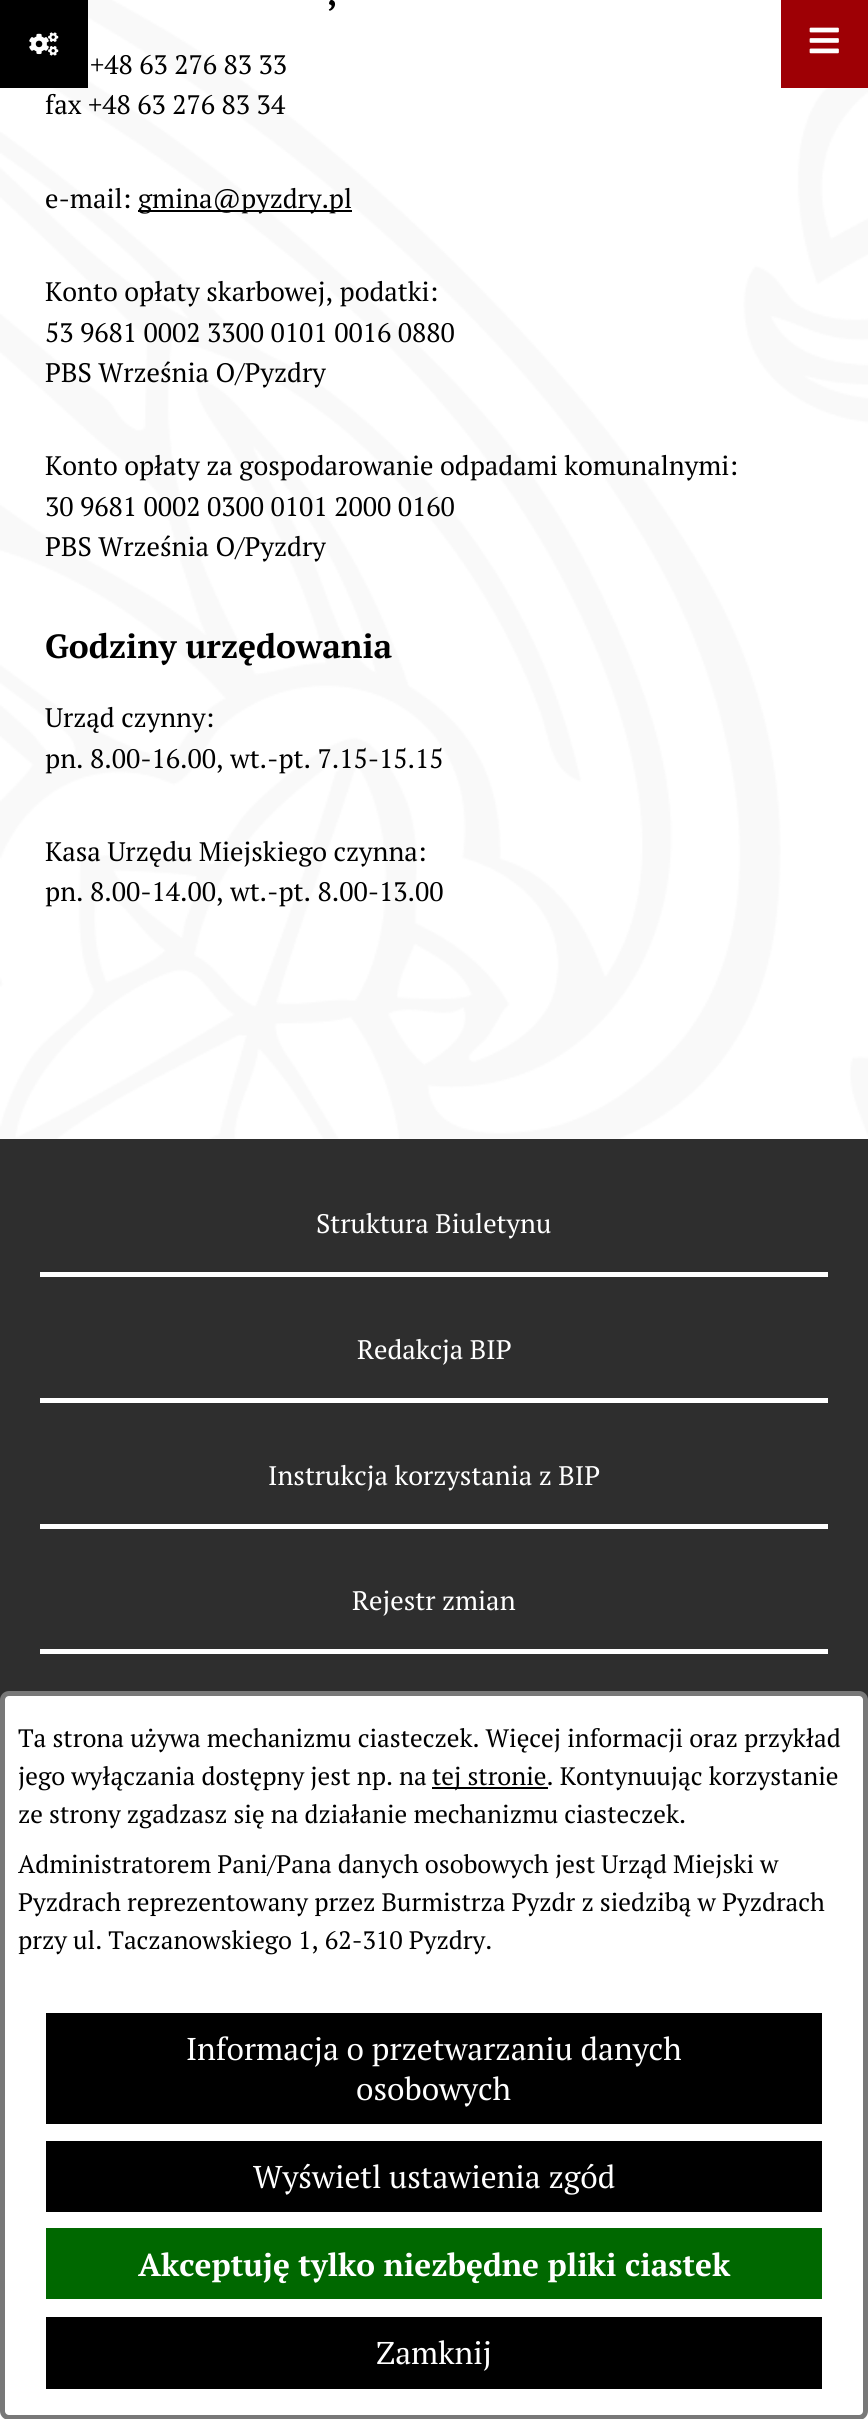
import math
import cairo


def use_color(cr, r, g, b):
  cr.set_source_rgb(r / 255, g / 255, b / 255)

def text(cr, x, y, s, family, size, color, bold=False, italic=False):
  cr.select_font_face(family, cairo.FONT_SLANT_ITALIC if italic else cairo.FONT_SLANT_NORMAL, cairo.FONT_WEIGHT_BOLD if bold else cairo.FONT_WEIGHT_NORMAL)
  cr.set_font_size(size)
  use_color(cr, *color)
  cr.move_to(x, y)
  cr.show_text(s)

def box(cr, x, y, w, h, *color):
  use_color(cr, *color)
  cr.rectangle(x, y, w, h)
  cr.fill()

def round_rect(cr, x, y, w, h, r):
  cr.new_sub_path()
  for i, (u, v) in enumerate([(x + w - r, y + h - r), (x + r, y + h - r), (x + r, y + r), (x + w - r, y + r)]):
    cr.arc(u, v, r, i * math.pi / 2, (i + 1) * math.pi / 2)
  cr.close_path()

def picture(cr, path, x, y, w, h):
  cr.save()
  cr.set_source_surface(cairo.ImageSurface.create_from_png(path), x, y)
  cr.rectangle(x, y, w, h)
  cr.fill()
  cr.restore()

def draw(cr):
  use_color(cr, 255, 255, 255)
  cr.paint()
  picture(cr, "img_03.png", 0, 0, 868, 1139)
  box(cr, 0, 0, 88, 88, 0, 0, 0)
  picture(cr, "img_01.png", 29, 32, 30, 24)
  box(cr, 781, 0, 87, 88, 158, 0, 5)
  picture(cr, "img_02.png", 809, 27, 30, 27)
  box(cr, 138, 210, 214, 2, 0, 0, 0)
  box(cr, 0, 1139, 868, 561, 46, 46, 46)
  box(cr, 40, 1272, 788, 5, 255, 255, 255)
  box(cr, 40, 1398, 788, 5, 255, 255, 255)
  box(cr, 40, 1524, 788, 5, 255, 255, 255)
  box(cr, 40, 1649, 788, 5, 255, 255, 255)
  round_rect(cr, 2.5, 1693.5, 863, 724, 6.5)
  cr.fill_preserve()
  use_color(cr, 120, 120, 120)
  cr.set_line_width(5)
  cr.stroke()
  box(cr, 432, 1787, 116, 2, 0, 0, 0)
  box(cr, 46, 2013, 776, 111, 0, 0, 0)
  box(cr, 46, 2141, 776, 71, 0, 0, 0)
  box(cr, 46, 2228, 776, 71, 0, 104, 0)
  box(cr, 46, 2317, 776, 72, 0, 0, 0)
  text(cr, 327, 5, ",", "PT Serif", 33.5, (0, 0, 0), bold=True)
  text(cr, 90, 74, "+48 63 276 83 33", "PT Serif", 26.75, (0, 0, 0))
  text(cr, 45, 114, "fax +48 63 276 83 34", "PT Serif", 26.75, (0, 0, 0))
  text(cr, 45, 208, "e-mail:", "PT Serif", 26.75, (0, 0, 0))
  text(cr, 138, 208, "gmina@pyzdry.pl", "PT Serif", 26.75, (0, 0, 0))
  text(cr, 45, 301, "Konto opłaty skarbowej, podatki:", "PT Serif", 26.75, (0, 0, 0))
  text(cr, 45, 342, "53 9681 0002 3300 0101 0016 0880", "PT Serif", 26.75, (0, 0, 0))
  text(cr, 45, 382, "PBS Września O/Pyzdry", "PT Serif", 26.75, (0, 0, 0))
  text(cr, 45, 475, "Konto opłaty za gospodarowanie odpadami komunalnymi:", "PT Serif", 26.75, (0, 0, 0))
  text(cr, 45, 516, "30 9681 0002 0300 0101 2000 0160", "PT Serif", 26.75, (0, 0, 0))
  text(cr, 45, 556, "PBS Września O/Pyzdry", "PT Serif", 26.75, (0, 0, 0))
  text(cr, 45, 658, "Godziny urzędowania", "PT Serif", 33.5, (0, 0, 0), bold=True)
  text(cr, 45, 727, "Urząd czynny:", "PT Serif", 26.75, (0, 0, 0))
  text(cr, 45, 768, "pn. 8.00-16.00, wt.-pt. 7.15-15.15", "PT Serif", 26.75, (0, 0, 0))
  text(cr, 45, 861, "Kasa Urzędu Miejskiego czynna:", "PT Serif", 26.75, (0, 0, 0))
  text(cr, 45, 901, "pn. 8.00-14.00, wt.-pt. 8.00-13.00", "PT Serif", 26.75, (0, 0, 0))
  text(cr, 316, 1233, "Struktura Biuletynu", "PT Serif", 26.75, (255, 255, 255))
  text(cr, 357, 1359, "Redakcja BIP", "PT Serif", 26.75, (255, 255, 255))
  text(cr, 268, 1485, "Instrukcja korzystania z BIP", "PT Serif", 26.75, (255, 255, 255))
  text(cr, 352, 1610, "Rejestr zmian", "PT Serif", 26.75, (255, 255, 255))
  text(cr, 18, 1747, "Ta strona używa mechanizmu ciasteczek. Więcej informacji oraz przykład", "PT Serif", 25.2, (0, 0, 0))
  text(cr, 18, 1785, "jego wyłączania dostępny jest np. na", "PT Serif", 25.2, (0, 0, 0))
  text(cr, 432, 1785, "tej stronie. Kontynuując korzystanie", "PT Serif", 25.2, (0, 0, 0))
  text(cr, 18, 1823, "ze strony zgadzasz się na działanie mechanizmu ciasteczek.", "PT Serif", 25.2, (0, 0, 0))
  text(cr, 18, 1873, "Administratorem Pani/Pana danych osobowych jest Urząd Miejski w", "PT Serif", 25.2, (0, 0, 0))
  text(cr, 18, 1911, "Pyzdrach reprezentowany przez Burmistrza Pyzdr z siedzibą w Pyzdrach", "PT Serif", 25.2, (0, 0, 0))
  text(cr, 18, 1949, "przy ul. Taczanowskiego 1, 62-310 Pyzdry.", "PT Serif", 25.2, (0, 0, 0))
  text(cr, 186, 2060, "Informacja o przetwarzaniu danych", "PT Serif", 31.5, (255, 255, 255))
  text(cr, 356, 2100, "osobowych", "PT Serif", 31.5, (255, 255, 255))
  text(cr, 253, 2188, "Wyświetl ustawienia zgód", "PT Serif", 31.5, (255, 255, 255))
  text(cr, 138, 2276, "Akceptuję tylko niezbędne pliki ciastek", "PT Serif", 31.5, (255, 255, 255), bold=True)
  text(cr, 376, 2364, "Zamknij", "PT Serif", 31.5, (255, 255, 255))


surface = cairo.ImageSurface(cairo.FORMAT_RGB24, 868, 2419)
cr = cairo.Context(surface)
options = cairo.FontOptions()
options.set_hint_metrics(cairo.HINT_METRICS_OFF)
options.set_hint_style(cairo.HINT_STYLE_NONE)
cr.set_font_options(options)
cr.set_miter_limit(4)
draw(cr)
surface.write_to_png("out.png")
